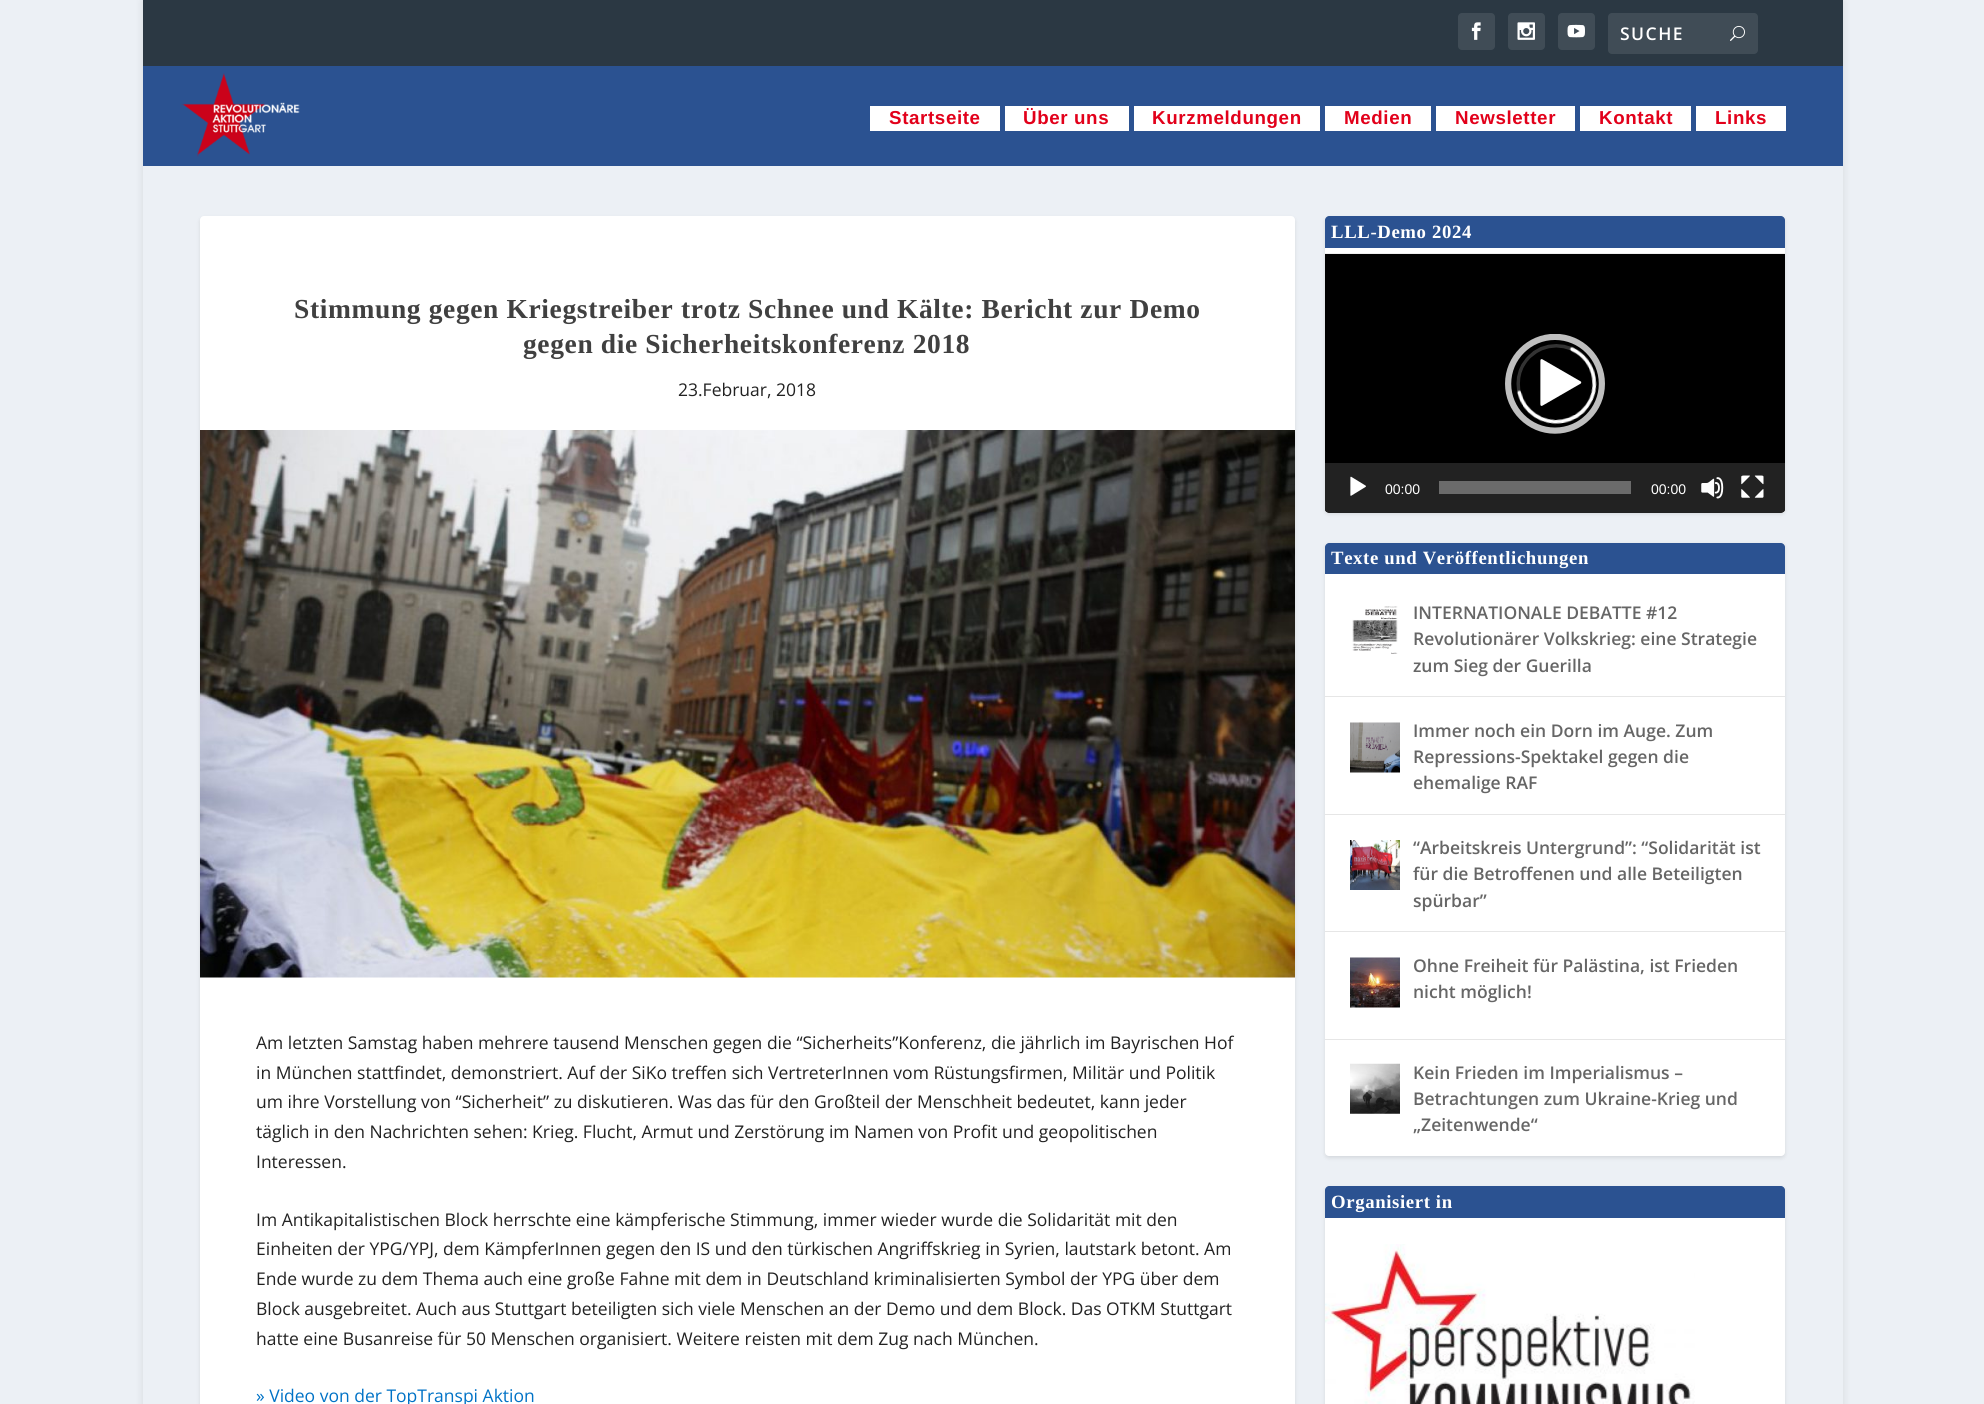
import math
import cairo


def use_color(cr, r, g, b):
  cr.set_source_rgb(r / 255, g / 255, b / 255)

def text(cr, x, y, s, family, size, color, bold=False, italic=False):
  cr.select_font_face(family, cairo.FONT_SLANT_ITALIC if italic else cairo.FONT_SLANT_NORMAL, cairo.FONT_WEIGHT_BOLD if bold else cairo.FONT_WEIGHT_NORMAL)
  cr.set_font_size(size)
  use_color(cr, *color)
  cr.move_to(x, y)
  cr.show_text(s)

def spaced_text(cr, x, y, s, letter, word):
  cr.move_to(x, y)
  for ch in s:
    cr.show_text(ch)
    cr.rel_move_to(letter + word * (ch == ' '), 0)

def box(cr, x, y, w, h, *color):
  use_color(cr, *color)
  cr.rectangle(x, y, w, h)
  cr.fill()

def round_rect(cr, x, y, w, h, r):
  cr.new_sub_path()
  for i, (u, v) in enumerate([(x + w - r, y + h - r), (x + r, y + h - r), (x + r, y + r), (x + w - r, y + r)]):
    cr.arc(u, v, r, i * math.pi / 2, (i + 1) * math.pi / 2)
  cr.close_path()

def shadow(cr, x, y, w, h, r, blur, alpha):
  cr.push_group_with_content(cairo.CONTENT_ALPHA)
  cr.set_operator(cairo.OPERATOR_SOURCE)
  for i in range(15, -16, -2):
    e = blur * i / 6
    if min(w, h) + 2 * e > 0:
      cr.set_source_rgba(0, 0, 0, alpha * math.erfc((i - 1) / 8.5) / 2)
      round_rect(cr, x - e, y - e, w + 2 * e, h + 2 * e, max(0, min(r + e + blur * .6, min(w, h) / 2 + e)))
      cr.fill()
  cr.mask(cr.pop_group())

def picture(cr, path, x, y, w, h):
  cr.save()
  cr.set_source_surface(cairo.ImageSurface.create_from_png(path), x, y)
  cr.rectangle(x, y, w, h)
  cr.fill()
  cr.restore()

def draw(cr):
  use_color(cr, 236, 240, 245)
  cr.paint()
  cr.save()
  cr.set_fill_rule(cairo.FILL_RULE_EVEN_ODD)
  cr.new_path()
  cr.move_to(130, 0)
  cr.line_to(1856, 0)
  cr.line_to(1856, 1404)
  cr.line_to(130, 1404)
  cr.close_path()
  cr.move_to(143, 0)
  cr.line_to(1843, 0)
  cr.line_to(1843, 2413)
  cr.line_to(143, 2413)
  cr.close_path()
  cr.clip()
  use_color(cr, 0, 0, 0)
  shadow(cr, 143, 1, 1700, 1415, 0, 4, 0.1)
  cr.restore()
  box(cr, 143, 0, 1700, 66, 43, 56, 67)
  use_color(cr, 64, 76, 86)
  round_rect(cr, 1458, 13, 37, 37, 4)
  cr.fill()
  picture(cr, "img_01.png", 1471, 22, 10, 18)
  round_rect(cr, 1508, 13, 37, 37, 4)
  cr.fill()
  picture(cr, "img_02.png", 1517, 22, 18, 18)
  round_rect(cr, 1558, 13, 37, 37, 4)
  cr.fill()
  picture(cr, "img_03.png", 1567, 24, 18, 14)
  round_rect(cr, 1608, 13, 150, 41, 4)
  cr.fill()
  picture(cr, "img_04.png", 1730, 25, 15, 16)
  box(cr, 143, 66, 1700, 100, 43, 82, 145)
  picture(cr, "img_05.png", 181, 73, 119, 84)
  box(cr, 870, 106, 130, 25, 255, 255, 255)
  box(cr, 1005, 106, 124, 25, 255, 255, 255)
  box(cr, 1134, 106, 186, 25, 255, 255, 255)
  box(cr, 1325, 106, 106, 25, 255, 255, 255)
  box(cr, 1436, 106, 139, 25, 255, 255, 255)
  box(cr, 1580, 106, 111, 25, 255, 255, 255)
  box(cr, 1696, 106, 90, 25, 255, 255, 255)
  use_color(cr, 0, 0, 0)
  shadow(cr, 200, 218, 1095, 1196, 4, 2, 0.1)
  use_color(cr, 255, 255, 255)
  round_rect(cr, 200, 216, 1095, 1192, 4)
  cr.fill()
  picture(cr, "img_06.png", 200, 430, 1095, 548)
  use_color(cr, 0, 0, 0)
  shadow(cr, 1325, 218, 460, 296, 4, 2, 0.1)
  use_color(cr, 255, 255, 255)
  round_rect(cr, 1325, 216, 460, 297, 4)
  cr.fill()
  use_color(cr, 43, 82, 145)
  cr.new_path()
  cr.move_to(1329, 216)
  cr.line_to(1781, 216)
  cr.curve_to(1783, 216, 1785, 218, 1785, 220)
  cr.line_to(1785, 248)
  cr.line_to(1325, 248)
  cr.line_to(1325, 220)
  cr.curve_to(1325, 218, 1327, 216, 1329, 216)
  cr.close_path()
  cr.fill()
  picture(cr, "img_07.png", 1325, 253, 460, 260)
  picture(cr, "img_08.png", 1505, 334, 100, 100)
  use_color(cr, 34, 34, 34)
  cr.new_path()
  cr.move_to(1325, 463)
  cr.line_to(1785, 463)
  cr.line_to(1785, 509)
  cr.curve_to(1785, 511, 1783, 513, 1781, 513)
  cr.line_to(1329, 513)
  cr.curve_to(1327, 513, 1325, 511, 1325, 509)
  cr.close_path()
  cr.fill()
  picture(cr, "img_09.png", 1350, 476, 16, 20)
  box(cr, 1439, 481, 192, 13, 107, 107, 107)
  picture(cr, "img_10.png", 1701, 477, 23, 22)
  picture(cr, "img_11.png", 1741, 475, 23, 23)
  use_color(cr, 0, 0, 0)
  shadow(cr, 1325, 544, 460, 614, 4, 2, 0.1)
  use_color(cr, 255, 255, 255)
  round_rect(cr, 1325, 543, 460, 613, 4)
  cr.fill()
  use_color(cr, 43, 82, 145)
  cr.new_path()
  cr.move_to(1329, 543)
  cr.line_to(1781, 543)
  cr.curve_to(1783, 543, 1785, 545, 1785, 547)
  cr.line_to(1785, 574)
  cr.line_to(1325, 574)
  cr.line_to(1325, 547)
  cr.curve_to(1325, 545, 1327, 543, 1329, 543)
  cr.close_path()
  cr.fill()
  box(cr, 1325, 696, 460, 1, 230, 230, 230)
  picture(cr, "img_12.png", 1352, 606, 46, 48)
  box(cr, 1325, 814, 460, 1, 230, 230, 230)
  picture(cr, "img_13.png", 1350, 722, 50, 51)
  box(cr, 1325, 931, 460, 1, 230, 230, 230)
  picture(cr, "img_14.png", 1350, 840, 50, 50)
  box(cr, 1325, 1039, 460, 1, 230, 230, 230)
  picture(cr, "img_15.png", 1350, 957, 50, 51)
  picture(cr, "img_16.png", 1350, 1063, 50, 51)
  use_color(cr, 0, 0, 0)
  shadow(cr, 1325, 1188, 460, 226, 4, 2, 0.1)
  use_color(cr, 255, 255, 255)
  round_rect(cr, 1325, 1186, 460, 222, 4)
  cr.fill()
  use_color(cr, 43, 82, 145)
  cr.new_path()
  cr.move_to(1329, 1186)
  cr.line_to(1781, 1186)
  cr.curve_to(1783, 1186, 1785, 1188, 1785, 1190)
  cr.line_to(1785, 1218)
  cr.line_to(1325, 1218)
  cr.line_to(1325, 1190)
  cr.curve_to(1325, 1188, 1327, 1186, 1329, 1186)
  cr.close_path()
  cr.fill()
  picture(cr, "img_17.png", 1325, 1244, 370, 160)
  cr.select_font_face("Open Sans SemiBold")
  cr.set_font_size(17.5)
  use_color(cr, 255, 255, 255)
  spaced_text(cr, 1620, 40, "SUCHE", 1.5, 0)
  cr.select_font_face("Liberation Sans", cairo.FONT_SLANT_NORMAL, cairo.FONT_WEIGHT_BOLD)
  cr.set_font_size(18.75)
  use_color(cr, 226, 0, 26)
  spaced_text(cr, 889, 124, "Startseite", 0.62, 0)
  spaced_text(cr, 1023, 124, "Über uns", 0.62, 0)
  spaced_text(cr, 1152, 124, "Kurzmeldungen", 0.62, 0)
  spaced_text(cr, 1344, 124, "Medien", 0.62, 0)
  spaced_text(cr, 1455, 124, "Newsletter", 0.62, 0)
  spaced_text(cr, 1599, 124, "Kontakt", 0.62, 0)
  spaced_text(cr, 1715, 124, "Links", 0.62, 0)
  cr.select_font_face("Liberation Serif", cairo.FONT_SLANT_NORMAL, cairo.FONT_WEIGHT_BOLD)
  cr.set_font_size(27.5)
  use_color(cr, 64, 64, 64)
  spaced_text(cr, 294, 318, "Stimmung gegen Kriegstreiber trotz Schnee und Kälte: Bericht zur Demo", 0.62, 0)
  spaced_text(cr, 523, 353, "gegen die Sicherheitskonferenz 2018", 0.62, 0)
  text(cr, 678, 396, "23.Februar, 2018", "Open Sans", 17.5, (34, 34, 34))
  text(cr, 256, 1049, "Am letzten Samstag haben mehrere tausend Menschen gegen die “Sicherheits”Konferenz, die jährlich im Bayrischen Hof", "Open Sans", 17.5, (34, 34, 34))
  text(cr, 256, 1079, "in München stattfindet, demonstriert. Auf der SiKo treffen sich VertreterInnen vom Rüstungsfirmen, Militär und Politik", "Open Sans", 17.5, (34, 34, 34))
  text(cr, 256, 1108, "um ihre Vorstellung von “Sicherheit” zu diskutieren. Was das für den Großteil der Menschheit bedeutet, kann jeder", "Open Sans", 17.5, (34, 34, 34))
  text(cr, 256, 1138, "täglich in den Nachrichten sehen: Krieg. Flucht, Armut und Zerstörung im Namen von Profit und geopolitischen", "Open Sans", 17.5, (34, 34, 34))
  text(cr, 256, 1168, "Interessen.", "Open Sans", 17.5, (34, 34, 34))
  text(cr, 256, 1226, "Im Antikapitalistischen Block herrschte eine kämpferische Stimmung, immer wieder wurde die Solidarität mit den", "Open Sans", 17.5, (34, 34, 34))
  text(cr, 256, 1255, "Einheiten der YPG/YPJ, dem KämpferInnen gegen den IS und den türkischen Angriffskrieg in Syrien, lautstark betont. Am", "Open Sans", 17.5, (34, 34, 34))
  text(cr, 256, 1285, "Ende wurde zu dem Thema auch eine große Fahne mit dem in Deutschland kriminalisierten Symbol der YPG über dem", "Open Sans", 17.5, (34, 34, 34))
  text(cr, 256, 1315, "Block ausgebreitet. Auch aus Stuttgart beteiligten sich viele Menschen an der Demo und dem Block. Das OTKM Stuttgart", "Open Sans", 17.5, (34, 34, 34))
  text(cr, 256, 1345, "hatte eine Busanreise für 50 Menschen organisiert. Weitere reisten mit dem Zug nach München.", "Open Sans", 17.5, (34, 34, 34))
  text(cr, 256, 1402, "» Video von der TopTranspi Aktion", "Open Sans", 17.5, (0, 114, 198))
  cr.select_font_face("Liberation Serif", cairo.FONT_SLANT_NORMAL, cairo.FONT_WEIGHT_BOLD)
  cr.set_font_size(18.75)
  use_color(cr, 255, 255, 255)
  spaced_text(cr, 1331, 238, "LLL-Demo 2024", 0.62, 0)
  text(cr, 1385, 494, "00:00", "Liberation Sans", 14, (255, 255, 255))
  text(cr, 1651, 494, "00:00", "Liberation Sans", 14, (255, 255, 255))
  cr.select_font_face("Liberation Serif", cairo.FONT_SLANT_NORMAL, cairo.FONT_WEIGHT_BOLD)
  cr.set_font_size(18.75)
  spaced_text(cr, 1331, 564, "Texte und Veröffentlichungen", 0.62, 0)
  text(cr, 1413, 619, "INTERNATIONALE DEBATTE #12", "Open Sans SemiBold", 17.5, (102, 102, 102))
  text(cr, 1413, 645, "Revolutionärer Volkskrieg: eine Strategie", "Open Sans SemiBold", 17.5, (102, 102, 102))
  text(cr, 1413, 672, "zum Sieg der Guerilla", "Open Sans SemiBold", 17.5, (102, 102, 102))
  text(cr, 1413, 737, "Immer noch ein Dorn im Auge. Zum", "Open Sans SemiBold", 17.5, (102, 102, 102))
  text(cr, 1413, 763, "Repressions-Spektakel gegen die", "Open Sans SemiBold", 17.5, (102, 102, 102))
  text(cr, 1413, 789, "ehemalige RAF", "Open Sans SemiBold", 17.5, (102, 102, 102))
  text(cr, 1413, 854, "“Arbeitskreis Untergrund”: “Solidarität ist", "Open Sans SemiBold", 17.5, (102, 102, 102))
  text(cr, 1413, 880, "für die Betroffenen und alle Beteiligten", "Open Sans SemiBold", 17.5, (102, 102, 102))
  text(cr, 1413, 907, "spürbar”", "Open Sans SemiBold", 17.5, (102, 102, 102))
  text(cr, 1413, 972, "Ohne Freiheit für Palästina, ist Frieden", "Open Sans SemiBold", 17.5, (102, 102, 102))
  text(cr, 1413, 998, "nicht möglich!", "Open Sans SemiBold", 17.5, (102, 102, 102))
  text(cr, 1413, 1079, "Kein Frieden im Imperialismus –", "Open Sans SemiBold", 17.5, (102, 102, 102))
  text(cr, 1413, 1105, "Betrachtungen zum Ukraine-Krieg und", "Open Sans SemiBold", 17.5, (102, 102, 102))
  text(cr, 1413, 1131, "„Zeitenwende“", "Open Sans SemiBold", 17.5, (102, 102, 102))
  cr.select_font_face("Liberation Serif", cairo.FONT_SLANT_NORMAL, cairo.FONT_WEIGHT_BOLD)
  cr.set_font_size(18.75)
  use_color(cr, 255, 255, 255)
  spaced_text(cr, 1331, 1208, "Organisiert in", 0.62, 0)


surface = cairo.ImageSurface(cairo.FORMAT_RGB24, 1984, 1404)
cr = cairo.Context(surface)
options = cairo.FontOptions()
options.set_hint_metrics(cairo.HINT_METRICS_OFF)
options.set_hint_style(cairo.HINT_STYLE_NONE)
cr.set_font_options(options)
cr.set_miter_limit(4)
draw(cr)
surface.write_to_png("out.png")
